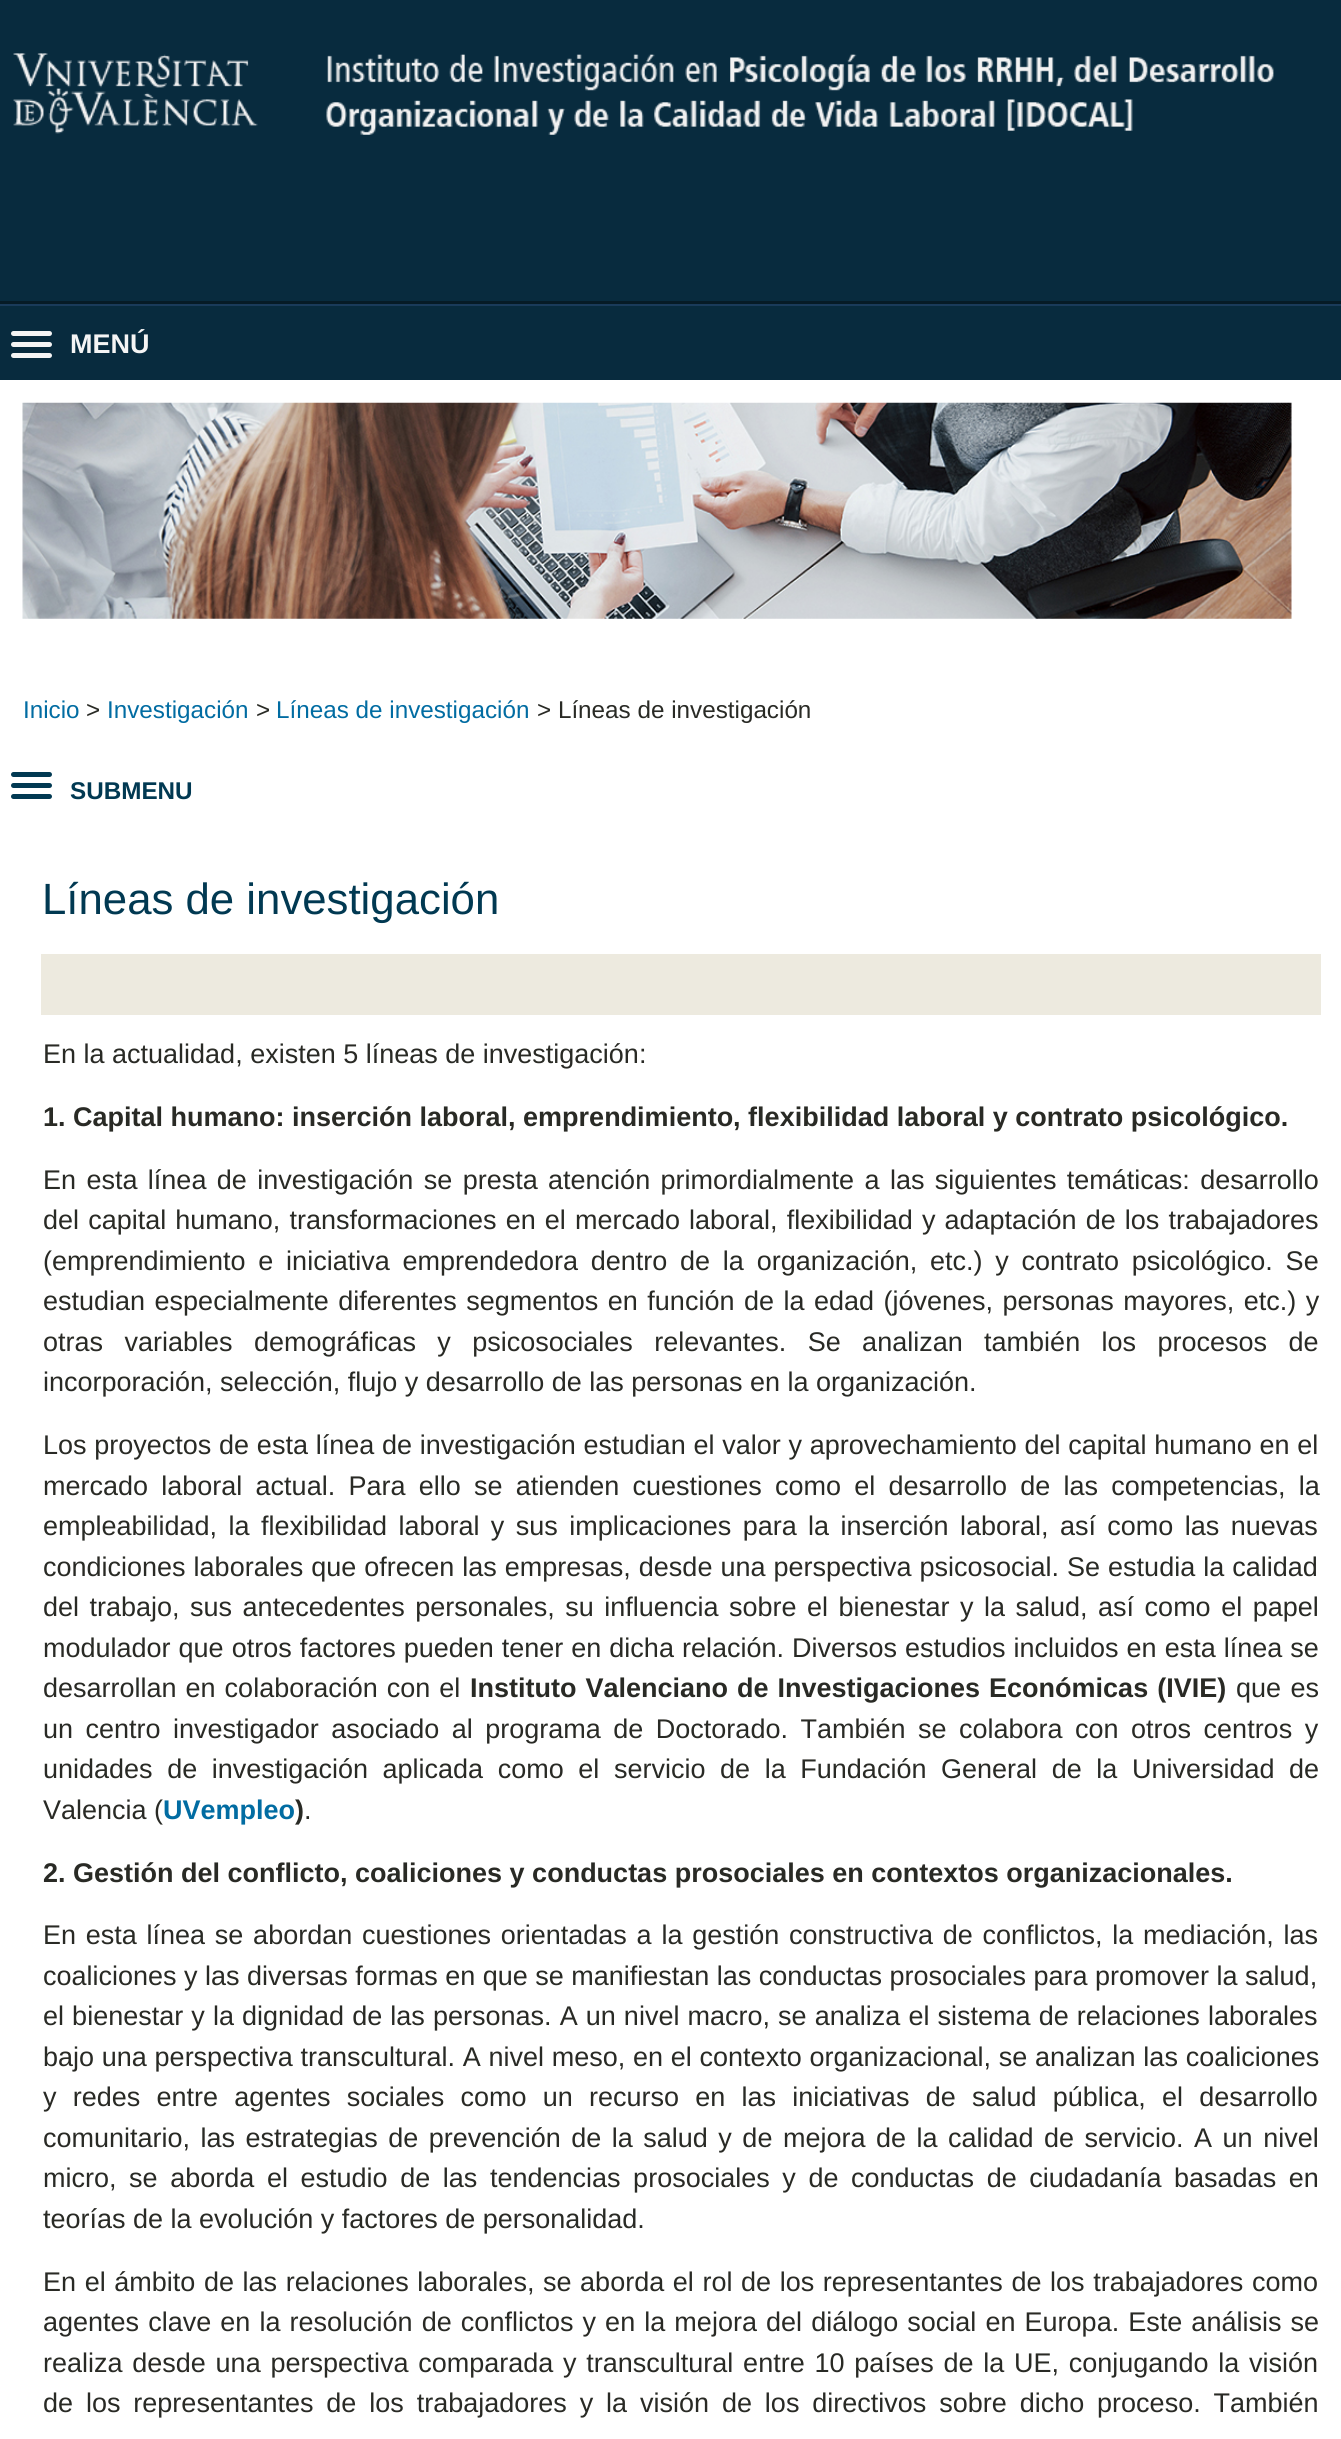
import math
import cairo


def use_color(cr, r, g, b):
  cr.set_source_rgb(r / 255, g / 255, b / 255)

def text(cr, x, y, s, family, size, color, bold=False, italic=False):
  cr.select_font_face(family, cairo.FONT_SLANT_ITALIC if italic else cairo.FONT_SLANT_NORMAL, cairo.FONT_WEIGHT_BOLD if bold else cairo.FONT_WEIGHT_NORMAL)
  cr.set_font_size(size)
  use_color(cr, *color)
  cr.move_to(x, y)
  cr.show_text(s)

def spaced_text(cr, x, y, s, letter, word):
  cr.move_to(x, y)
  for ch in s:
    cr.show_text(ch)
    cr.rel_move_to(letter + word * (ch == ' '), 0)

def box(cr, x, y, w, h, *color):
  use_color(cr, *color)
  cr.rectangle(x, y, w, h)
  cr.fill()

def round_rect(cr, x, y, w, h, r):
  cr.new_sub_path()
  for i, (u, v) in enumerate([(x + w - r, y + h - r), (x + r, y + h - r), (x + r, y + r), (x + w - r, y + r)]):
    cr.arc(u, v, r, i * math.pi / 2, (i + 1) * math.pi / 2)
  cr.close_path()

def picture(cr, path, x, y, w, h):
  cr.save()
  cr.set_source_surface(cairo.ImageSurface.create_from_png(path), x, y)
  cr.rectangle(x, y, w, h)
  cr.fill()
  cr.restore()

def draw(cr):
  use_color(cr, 255, 255, 255)
  cr.paint()
  box(cr, 0, 0, 1341, 301, 8, 43, 62)
  box(cr, 0, 301, 1341, 3, 6, 27, 38)
  picture(cr, "img_01.png", 13, 53, 1261, 82)
  box(cr, 0, 306, 1341, 74, 8, 43, 62)
  box(cr, 0, 304, 1341, 2, 26, 59, 90)
  use_color(cr, 245, 245, 245)
  round_rect(cr, 11, 331, 41, 5, 2.5)
  cr.fill()
  round_rect(cr, 11, 342, 41, 5, 2.5)
  cr.fill()
  round_rect(cr, 11, 353, 41, 5, 2.5)
  cr.fill()
  picture(cr, "img_02.png", 22, 402, 1270, 217)
  use_color(cr, 1, 57, 82)
  round_rect(cr, 11, 772, 41, 5, 2.5)
  cr.fill()
  round_rect(cr, 11, 783, 41, 5, 2.5)
  cr.fill()
  round_rect(cr, 11, 794, 41, 5, 2.5)
  cr.fill()
  box(cr, 41, 954, 1280, 61, 237, 234, 223)
  text(cr, 70, 353, "MENÚ", "Liberation Sans", 27, (245, 245, 245), bold=True)
  text(cr, 23, 718, "Inicio", "Liberation Sans", 24.25, (1, 108, 162))
  text(cr, 86, 718, ">", "Liberation Sans", 24.25, (41, 42, 37))
  text(cr, 107, 718, "Investigación", "Liberation Sans", 24.25, (1, 108, 162))
  text(cr, 256, 718, ">", "Liberation Sans", 24.25, (41, 42, 37))
  text(cr, 276, 718, "Líneas de investigación", "Liberation Sans", 24.25, (1, 108, 162))
  text(cr, 537, 718, "> Líneas de investigación", "Liberation Sans", 24.25, (41, 42, 37))
  text(cr, 70, 799, "SUBMENU", "Liberation Sans", 24.25, (1, 57, 82), bold=True)
  text(cr, 42, 914, "Líneas de investigación", "Liberation Sans", 43.75, (1, 57, 82))
  text(cr, 43, 1063, "En la actualidad, existen 5 líneas de investigación:", "Liberation Sans", 27, (41, 42, 37))
  text(cr, 43, 1126, "1. Capital humano: inserción laboral, emprendimiento, flexibilidad laboral y contrato psicológico.", "Liberation Sans", 27, (41, 42, 37), bold=True)
  cr.select_font_face("Liberation Sans")
  spaced_text(cr, 43, 1189, "En esta línea de investigación se presta atención primordialmente a las siguientes temáticas: desarrollo", 0, 2.9)
  spaced_text(cr, 43, 1229, "del capital humano, transformaciones en el mercado laboral, flexibilidad y adaptación de los trabajadores", 0, 1.6)
  spaced_text(cr, 43, 1270, "(emprendimiento e iniciativa emprendedora dentro de la organización, etc.) y contrato psicológico. Se", 0, 5.25)
  spaced_text(cr, 43, 1310, "estudian especialmente diferentes segmentos en función de la edad (jóvenes, personas mayores, etc.) y", 0, 2)
  spaced_text(cr, 43, 1351, "otras variables demográficas y psicosociales relevantes. Se analizan también los procesos de", 0, 13.9)
  text(cr, 43, 1391, "incorporación, selección, flujo y desarrollo de las personas en la organización.", "Liberation Sans", 27, (41, 42, 37))
  spaced_text(cr, 43, 1454, "Los proyectos de esta línea de investigación estudian el valor y aprovechamiento del capital humano en el", 0, 0.25)
  spaced_text(cr, 43, 1495, "mercado laboral actual. Para ello se atienden cuestiones como el desarrollo de las competencias, la", 0, 5.75)
  spaced_text(cr, 43, 1535, "empleabilidad, la flexibilidad laboral y sus implicaciones para la inserción laboral, así como las nuevas", 0, 3.9)
  spaced_text(cr, 43, 1576, "condiciones laborales que ofrecen las empresas, desde una perspectiva psicosocial. Se estudia la calidad", 0, 0.5)
  spaced_text(cr, 43, 1616, "del trabajo, sus antecedentes personales, su influencia sobre el bienestar y la salud, así como el papel", 0, 3)
  spaced_text(cr, 43, 1657, "modulador que otros factores pueden tener en dicha relación. Diversos estudios incluidos en esta línea se", 0, 0.5)
  spaced_text(cr, 43, 1697, "desarrollan en colaboración con el", 0, 1.5)
  cr.select_font_face("Liberation Sans", cairo.FONT_SLANT_NORMAL, cairo.FONT_WEIGHT_BOLD)
  spaced_text(cr, 470, 1697, "Instituto Valenciano de Investigaciones Económicas (IVIE)", 0, 1.5)
  cr.select_font_face("Liberation Sans")
  spaced_text(cr, 1236, 1697, "que es", 0, 2)
  spaced_text(cr, 43, 1738, "un centro investigador asociado al programa de Doctorado. También se colabora con otros centros y", 0, 5)
  spaced_text(cr, 43, 1778, "unidades de investigación aplicada como el servicio de la Fundación General de la Universidad de", 0, 7.1)
  text(cr, 43, 1819, "Valencia (", "Liberation Sans", 27, (41, 42, 37))
  text(cr, 163, 1819, "UVempleo", "Liberation Sans", 27, (1, 108, 162), bold=True)
  text(cr, 295, 1819, ")", "Liberation Sans", 27, (41, 42, 37), bold=True)
  text(cr, 304, 1819, ".", "Liberation Sans", 27, (41, 42, 37))
  text(cr, 43, 1882, "2. Gestión del conflicto, coaliciones y conductas prosociales en contextos organizacionales.", "Liberation Sans", 27, (41, 42, 37), bold=True)
  cr.select_font_face("Liberation Sans")
  spaced_text(cr, 43, 1944, "En esta línea se abordan cuestiones orientadas a la gestión constructiva de conflictos, la mediación, las", 0, 2.25)
  text(cr, 43, 1985, "coaliciones y las diversas formas en que se manifiestan las conductas prosociales para promover la salud,", "Liberation Sans", 27, (41, 42, 37))
  spaced_text(cr, 43, 2025, "el bienestar y la dignidad de las personas. A un nivel macro, se analiza el sistema de relaciones laborales", 0, 0.6)
  spaced_text(cr, 43, 2066, "bajo una perspectiva transcultural. A nivel meso, en el contexto organizacional, se analizan las coaliciones", 0, 0.25)
  spaced_text(cr, 43, 2106, "y redes entre agentes sociales como un recurso en las iniciativas de salud pública, el desarrollo", 0, 8.75)
  spaced_text(cr, 43, 2147, "comunitario, las estrategias de prevención de la salud y de mejora de la calidad de servicio. A un nivel", 0, 3)
  spaced_text(cr, 43, 2187, "micro, se aborda el estudio de las tendencias prosociales y de conductas de ciudadanía basadas en", 0, 5.1)
  text(cr, 43, 2228, "teorías de la evolución y factores de personalidad.", "Liberation Sans", 27, (41, 42, 37))
  spaced_text(cr, 43, 2291, "En el ámbito de las relaciones laborales, se aborda el rol de los representantes de los trabajadores como", 0, 1.1)
  spaced_text(cr, 43, 2331, "agentes clave en la resolución de conflictos y en la mejora del diálogo social en Europa. Este análisis se", 0, 1.6)
  spaced_text(cr, 43, 2372, "realiza desde una perspectiva comparada y transcultural entre 10 países de la UE, conjugando la visión", 0, 2.25)
  spaced_text(cr, 43, 2412, "de los representantes de los trabajadores y la visión de los directivos sobre dicho proceso. También", 0, 5.4)


surface = cairo.ImageSurface(cairo.FORMAT_RGB24, 1341, 2439)
cr = cairo.Context(surface)
options = cairo.FontOptions()
options.set_hint_metrics(cairo.HINT_METRICS_OFF)
options.set_hint_style(cairo.HINT_STYLE_NONE)
cr.set_font_options(options)
cr.set_miter_limit(4)
draw(cr)
surface.write_to_png("out.png")
